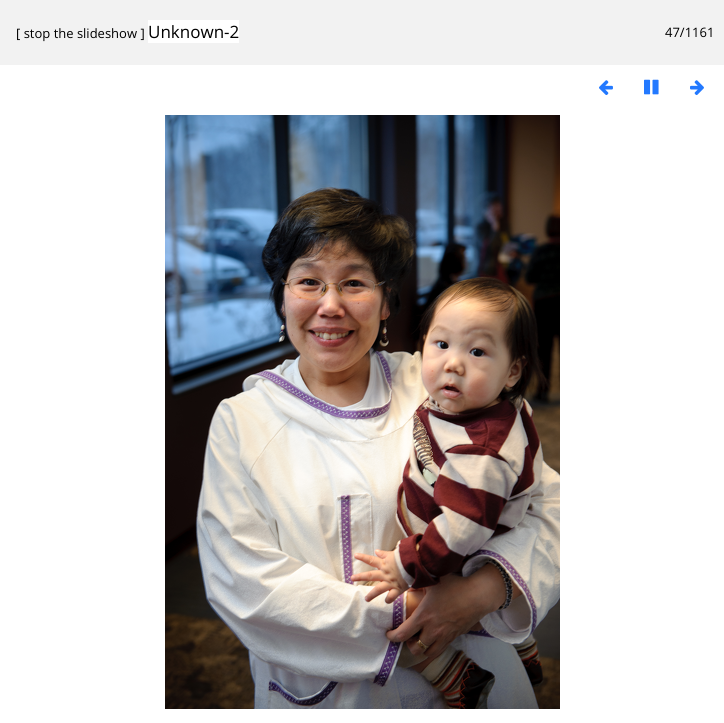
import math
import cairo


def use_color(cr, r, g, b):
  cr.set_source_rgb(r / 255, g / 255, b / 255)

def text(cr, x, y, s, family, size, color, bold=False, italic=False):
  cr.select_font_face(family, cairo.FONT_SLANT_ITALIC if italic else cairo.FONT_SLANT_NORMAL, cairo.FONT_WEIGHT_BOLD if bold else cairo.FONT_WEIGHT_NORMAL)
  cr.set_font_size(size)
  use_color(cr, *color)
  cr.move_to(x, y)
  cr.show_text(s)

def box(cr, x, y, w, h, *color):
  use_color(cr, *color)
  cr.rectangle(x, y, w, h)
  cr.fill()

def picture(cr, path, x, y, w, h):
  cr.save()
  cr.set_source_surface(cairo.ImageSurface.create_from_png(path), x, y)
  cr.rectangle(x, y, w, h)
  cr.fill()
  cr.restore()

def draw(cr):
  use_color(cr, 255, 255, 255)
  cr.paint()
  box(cr, 0, 0, 724, 65, 242, 242, 242)
  box(cr, 148, 20, 91, 23, 255, 255, 255)
  picture(cr, "img_01.png", 644, 79, 15, 16)
  picture(cr, "img_02.png", 165, 115, 395, 594)
  text(cr, 16, 38, "[ stop the slideshow ]", "Open Sans", 13, (0, 0, 0))
  text(cr, 148, 38, "Unknown-2", "Open Sans", 17, (0, 0, 0))
  text(cr, 665, 37, "47/1161", "Open Sans", 13, (0, 0, 0))
  text(cr, 599, 93, "←", "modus", 17, (35, 121, 255))
  text(cr, 690, 93, "→", "modus", 17, (35, 121, 255))


surface = cairo.ImageSurface(cairo.FORMAT_RGB24, 724, 723)
cr = cairo.Context(surface)
options = cairo.FontOptions()
options.set_hint_metrics(cairo.HINT_METRICS_OFF)
options.set_hint_style(cairo.HINT_STYLE_NONE)
cr.set_font_options(options)
cr.set_miter_limit(4)
draw(cr)
surface.write_to_png("out.png")
